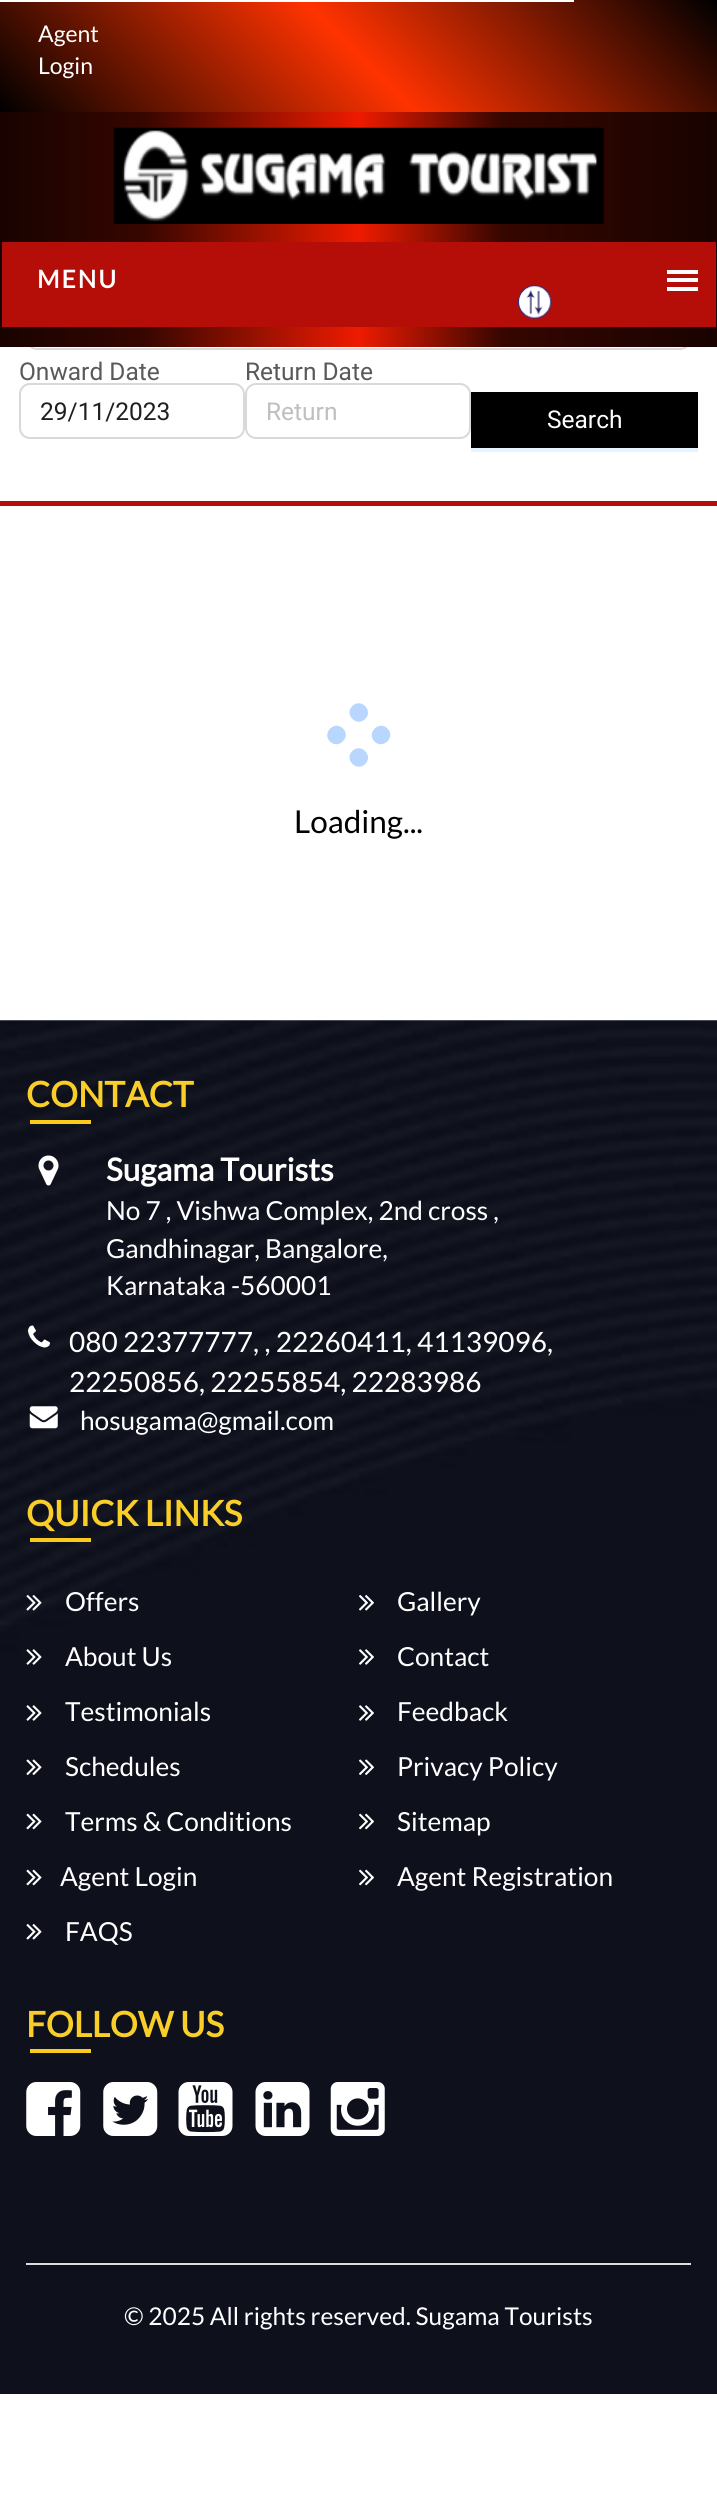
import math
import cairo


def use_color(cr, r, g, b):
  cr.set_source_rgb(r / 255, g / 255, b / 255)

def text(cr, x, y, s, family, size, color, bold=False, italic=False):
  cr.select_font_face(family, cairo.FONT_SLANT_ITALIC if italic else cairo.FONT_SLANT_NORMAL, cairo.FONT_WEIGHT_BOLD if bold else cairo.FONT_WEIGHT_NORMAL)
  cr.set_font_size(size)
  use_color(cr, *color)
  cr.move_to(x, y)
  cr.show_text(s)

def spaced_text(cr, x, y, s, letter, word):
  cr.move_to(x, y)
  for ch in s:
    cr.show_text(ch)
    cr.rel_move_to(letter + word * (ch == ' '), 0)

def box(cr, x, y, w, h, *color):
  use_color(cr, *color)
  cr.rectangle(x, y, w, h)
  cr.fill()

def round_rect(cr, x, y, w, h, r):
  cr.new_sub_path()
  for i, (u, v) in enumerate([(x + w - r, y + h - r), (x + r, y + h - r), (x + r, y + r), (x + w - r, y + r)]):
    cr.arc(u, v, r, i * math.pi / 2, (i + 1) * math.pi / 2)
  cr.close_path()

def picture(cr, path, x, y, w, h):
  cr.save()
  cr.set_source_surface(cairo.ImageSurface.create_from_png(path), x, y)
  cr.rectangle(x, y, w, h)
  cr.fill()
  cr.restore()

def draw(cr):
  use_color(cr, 255, 255, 255)
  cr.paint()
  gradient = cairo.LinearGradient(151, 263, 566, -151)
  gradient.add_color_stop_rgba(0, 0, 0, 0, 1)
  gradient.add_color_stop_rgba(0.5, 1, 0.2, 0, 1)
  gradient.add_color_stop_rgba(1, 0, 0, 0, 1)
  cr.set_source(gradient)
  cr.rectangle(0, 0, 717, 112)
  cr.fill()
  box(cr, 0, 0, 574, 2, 255, 255, 255)
  round_rect(cr, 27, 295, 663, 54, 10)
  use_color(cr, 217, 217, 217)
  cr.stroke()
  gradient = cairo.LinearGradient(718, 173, 0, 173)
  gradient.add_color_stop_rgba(0, 0.094, 0.012, 0, 1)
  gradient.add_color_stop_rgba(0.3, 0.212, 0.024, 0, 1)
  gradient.add_color_stop_rgba(0.5, 0.933, 0.106, 0, 1)
  gradient.add_color_stop_rgba(0.8, 0.212, 0.024, 0, 1)
  gradient.add_color_stop_rgba(1, 0.094, 0.012, 0, 1)
  cr.set_source(gradient)
  cr.rectangle(0, 112, 717, 235)
  cr.fill()
  picture(cr, "img_01.png", 113, 127, 491, 97)
  box(cr, 2, 242, 714, 85, 181, 14, 8)
  box(cr, 667, 270, 31, 4, 255, 255, 255)
  box(cr, 667, 278, 31, 4, 255, 255, 255)
  box(cr, 667, 287, 31, 4, 255, 255, 255)
  box(cr, 0, 501, 717, 5, 181, 14, 8)
  picture(cr, "img_02.png", 518, 285, 34, 34)
  round_rect(cr, 20, 384, 224, 54, 10)
  use_color(cr, 217, 217, 217)
  cr.stroke()
  round_rect(cr, 246, 384, 224, 54, 10)
  cr.stroke()
  box(cr, 471, 448, 227, 4, 230, 244, 255)
  box(cr, 471, 392, 227, 56, 0, 0, 0)
  use_color(cr, 185, 214, 255)
  cr.new_path()
  cr.move_to(365, 706)
  cr.curve_to(374, 714.5, 361, 727.5, 352.5, 719)
  cr.curve_to(343.5, 710.5, 356.5, 697.5, 365, 706)
  cr.close_path()
  cr.move_to(387.5, 728.5)
  cr.curve_to(396, 737, 383, 750, 374.5, 741.5)
  cr.curve_to(366, 733, 379, 720, 387.5, 728.5)
  cr.close_path()
  cr.fill()
  cr.new_path()
  cr.move_to(365, 751)
  cr.curve_to(374, 759.5, 361, 772.5, 352.5, 764)
  cr.curve_to(343.5, 755.5, 356.5, 742.5, 365, 751)
  cr.close_path()
  cr.move_to(343, 728.5)
  cr.curve_to(351.5, 737, 338.5, 750, 330, 741.5)
  cr.curve_to(321.5, 733, 334.5, 720, 343, 728.5)
  cr.close_path()
  cr.fill()
  picture(cr, "img_03.png", 0, 1020, 717, 1374)
  box(cr, 30, 1120, 61, 4, 250, 203, 24)
  picture(cr, "img_04.png", 38, 1155, 21, 31)
  picture(cr, "img_05.png", 28, 1325, 22, 23)
  picture(cr, "img_06.png", 29, 1406, 29, 23)
  box(cr, 30, 1538, 61, 4, 250, 203, 24)
  picture(cr, "img_07.png", 26, 1595, 16, 16)
  picture(cr, "img_08.png", 359, 1595, 15, 16)
  picture(cr, "img_09.png", 26, 1649, 16, 16)
  picture(cr, "img_10.png", 359, 1649, 15, 16)
  picture(cr, "img_09.png", 26, 1705, 16, 16)
  picture(cr, "img_10.png", 359, 1705, 15, 16)
  picture(cr, "img_11.png", 26, 1759, 16, 16)
  picture(cr, "img_12.png", 359, 1759, 15, 16)
  picture(cr, "img_13.png", 26, 1813, 16, 17)
  picture(cr, "img_14.png", 359, 1813, 15, 17)
  picture(cr, "img_13.png", 26, 1869, 16, 17)
  picture(cr, "img_14.png", 359, 1869, 15, 17)
  picture(cr, "img_15.png", 26, 1924, 16, 16)
  box(cr, 30, 2049, 61, 4, 250, 203, 24)
  picture(cr, "img_16.png", 26, 2082, 55, 54)
  picture(cr, "img_17.png", 103, 2082, 55, 54)
  picture(cr, "img_18.png", 178, 2082, 55, 54)
  picture(cr, "img_19.png", 255, 2082, 55, 54)
  picture(cr, "img_20.png", 330, 2082, 55, 54)
  box(cr, 26, 2263, 665, 2, 221, 221, 221)
  text(cr, 38, 42, "Agent", "Lato", 23, (255, 255, 255))
  text(cr, 38, 74, "Login", "Lato", 23, (255, 255, 255))
  cr.select_font_face("Lato", cairo.FONT_SLANT_NORMAL, cairo.FONT_WEIGHT_BOLD)
  cr.set_font_size(24.5)
  spaced_text(cr, 37, 288, "MENU", 2, 0)
  text(cr, 19, 380, "Onward Date", "Roboto", 24.5, (89, 89, 89))
  text(cr, 40, 420, "29/11/2023", "Roboto", 24.5, (31, 31, 31))
  text(cr, 245, 380, "Return Date", "Roboto", 24.5, (89, 89, 89))
  text(cr, 266, 420, "Return", "Roboto", 24.5, (191, 191, 191))
  text(cr, 547, 428, "Search", "Roboto", 24.5, (255, 255, 255))
  text(cr, 294, 833, "Loading...", "Lato", 31.5, (0, 0, 0))
  text(cr, 26, 1107, "CONTACT", "Lato", 35, (250, 206, 40), bold=True)
  text(cr, 106, 1181, "Sugama Tourists", "Lato", 31.5, (255, 255, 255), bold=True)
  text(cr, 106, 1220, "No 7 , Vishwa Complex, 2nd cross ,", "Lato", 26.25, (255, 255, 255))
  text(cr, 106, 1258, "Gandhinagar, Bangalore,", "Lato", 26.25, (255, 255, 255))
  text(cr, 106, 1295, "Karnataka -560001", "Lato", 26.25, (255, 255, 255))
  text(cr, 69, 1352, "080 22377777, , 22260411, 41139096,", "Lato", 28, (255, 255, 255))
  text(cr, 69, 1392, "22250856, 22255854, 22283986", "Lato", 28, (255, 255, 255))
  text(cr, 80, 1430, "hosugama@gmail.com", "Lato", 26.25, (255, 255, 255))
  text(cr, 26, 1526, "QUICK LINKS", "Lato", 35, (250, 206, 40), bold=True)
  text(cr, 65, 1611, "Offers", "Lato", 26.25, (255, 255, 255))
  text(cr, 397, 1611, "Gallery", "Lato", 26.25, (255, 255, 255))
  text(cr, 65, 1666, "About Us", "Lato", 26.25, (255, 255, 255))
  text(cr, 397, 1666, "Contact", "Lato", 26.25, (255, 255, 255))
  text(cr, 65, 1721, "Testimonials", "Lato", 26.25, (255, 255, 255))
  text(cr, 397, 1721, "Feedback", "Lato", 26.25, (255, 255, 255))
  text(cr, 65, 1776, "Schedules", "Lato", 26.25, (255, 255, 255))
  text(cr, 397, 1776, "Privacy Policy", "Lato", 26.25, (255, 255, 255))
  text(cr, 65, 1831, "Terms & Conditions", "Lato", 26.25, (255, 255, 255))
  text(cr, 397, 1831, "Sitemap", "Lato", 26.25, (255, 255, 255))
  text(cr, 60, 1886, "Agent Login", "Lato", 26.25, (255, 255, 255))
  text(cr, 397, 1886, "Agent Registration", "Lato", 26.25, (255, 255, 255))
  text(cr, 65, 1941, "FAQS", "Lato", 26.25, (255, 255, 255))
  text(cr, 26, 2037, "FOLLOW US", "Lato", 35, (250, 206, 40), bold=True)
  text(cr, 124, 2325, "© 2025 All rights reserved. Sugama Tourists", "Lato", 24.5, (255, 255, 255))


surface = cairo.ImageSurface(cairo.FORMAT_RGB24, 717, 2501)
cr = cairo.Context(surface)
options = cairo.FontOptions()
options.set_hint_metrics(cairo.HINT_METRICS_OFF)
options.set_hint_style(cairo.HINT_STYLE_NONE)
cr.set_font_options(options)
cr.set_miter_limit(4)
draw(cr)
surface.write_to_png("out.png")
